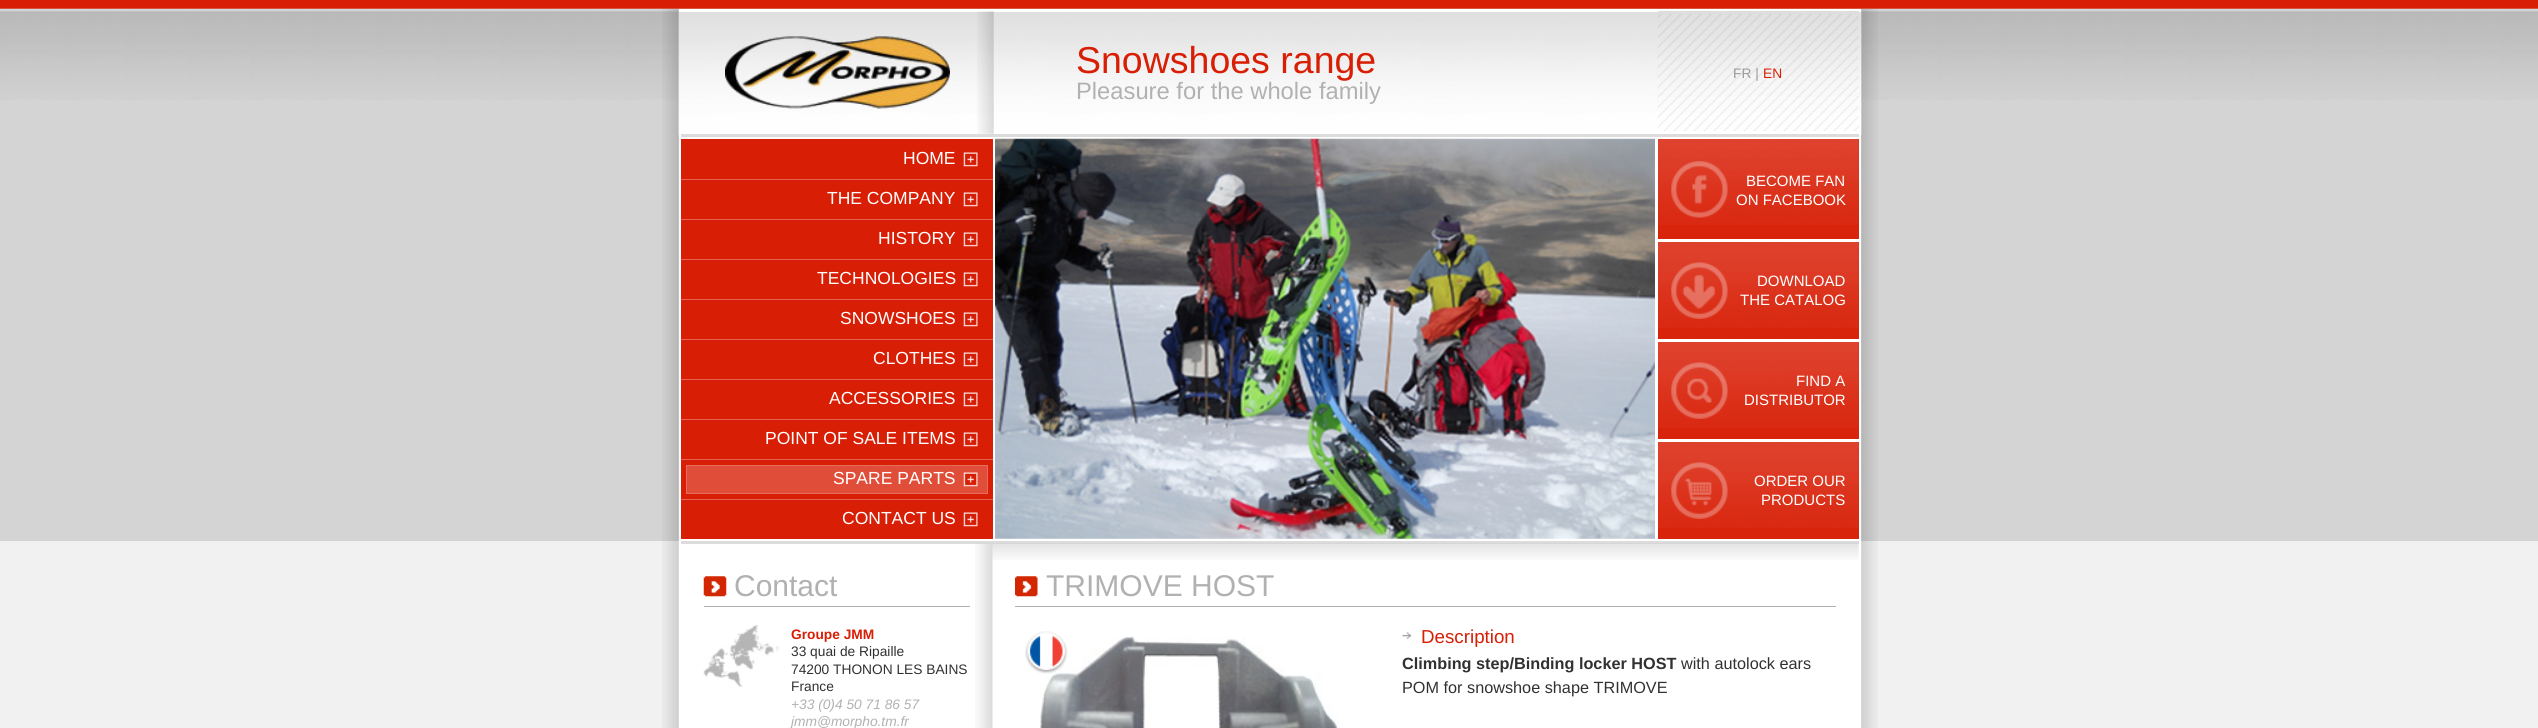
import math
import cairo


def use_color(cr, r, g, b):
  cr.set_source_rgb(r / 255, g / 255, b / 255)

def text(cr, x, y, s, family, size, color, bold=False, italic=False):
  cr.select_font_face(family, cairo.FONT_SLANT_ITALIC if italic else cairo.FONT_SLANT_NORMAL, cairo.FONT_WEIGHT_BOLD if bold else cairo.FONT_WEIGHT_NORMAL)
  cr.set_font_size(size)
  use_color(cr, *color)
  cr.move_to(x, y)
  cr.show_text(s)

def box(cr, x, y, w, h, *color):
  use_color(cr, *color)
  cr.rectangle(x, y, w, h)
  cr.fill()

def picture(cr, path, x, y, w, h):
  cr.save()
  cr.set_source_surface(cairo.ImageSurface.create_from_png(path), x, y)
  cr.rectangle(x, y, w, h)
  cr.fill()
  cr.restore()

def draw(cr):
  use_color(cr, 241, 241, 241)
  cr.paint()
  box(cr, 0, 100, 2538, 441, 212, 212, 212)
  picture(cr, "img_01.png", 0, 0, 2538, 100)
  picture(cr, "img_02.png", 662, 8, 1216, 534)
  box(cr, 679, 135, 1182, 406, 255, 255, 255)
  picture(cr, "img_03.png", 678, 11, 1184, 124)
  box(cr, 679, 9, 1182, 3, 255, 255, 255)
  box(cr, 681, 134, 1178, 3, 220, 220, 220)
  picture(cr, "img_04.png", 977, 11, 17, 123)
  picture(cr, "img_05.png", 725, 33, 225, 76)
  picture(cr, "img_06.png", 1657, 14, 202, 117)
  box(cr, 1658, 11, 201, 3, 222, 222, 222)
  box(cr, 681, 139, 312, 400, 216, 30, 5)
  picture(cr, "img_07.png", 963, 152, 15, 15)
  box(cr, 681, 179, 312, 1, 228, 98, 80)
  picture(cr, "img_07.png", 963, 192, 15, 15)
  box(cr, 681, 219, 312, 1, 228, 98, 80)
  picture(cr, "img_07.png", 963, 232, 15, 15)
  box(cr, 681, 259, 312, 1, 228, 98, 80)
  picture(cr, "img_07.png", 963, 272, 15, 15)
  box(cr, 681, 299, 312, 1, 228, 98, 80)
  picture(cr, "img_07.png", 963, 312, 15, 15)
  box(cr, 681, 339, 312, 1, 228, 98, 80)
  picture(cr, "img_07.png", 963, 352, 15, 15)
  box(cr, 681, 379, 312, 1, 228, 98, 80)
  picture(cr, "img_07.png", 963, 392, 15, 15)
  box(cr, 681, 419, 312, 1, 228, 98, 80)
  picture(cr, "img_07.png", 963, 432, 15, 15)
  box(cr, 681, 459, 312, 1, 228, 98, 80)
  use_color(cr, 224, 78, 58)
  cr.rectangle(686.5, 465.5, 301, 28)
  cr.fill_preserve()
  use_color(cr, 230, 109, 93)
  cr.set_line_width(1)
  cr.stroke()
  picture(cr, "img_08.png", 963, 472, 15, 15)
  box(cr, 681, 499, 312, 1, 228, 98, 80)
  picture(cr, "img_09.png", 963, 512, 15, 15)
  picture(cr, "img_10.png", 995, 138, 660, 401)
  box(cr, 1658, 139, 201, 100, 217, 36, 12)
  picture(cr, "img_11.png", 1658, 139, 201, 86)
  picture(cr, "img_12.png", 1671, 161, 57, 57)
  box(cr, 1658, 242, 201, 97, 217, 36, 12)
  picture(cr, "img_13.png", 1658, 242, 201, 86)
  picture(cr, "img_14.png", 1671, 262, 57, 57)
  box(cr, 1658, 342, 201, 97, 217, 36, 12)
  picture(cr, "img_15.png", 1658, 342, 201, 86)
  picture(cr, "img_16.png", 1671, 362, 57, 57)
  box(cr, 1658, 442, 201, 97, 217, 36, 12)
  picture(cr, "img_17.png", 1658, 442, 201, 86)
  picture(cr, "img_18.png", 1671, 462, 57, 57)
  picture(cr, "img_19.png", 662, 541, 1216, 187)
  box(cr, 679, 541, 1182, 187, 255, 255, 255)
  box(cr, 681, 541, 1178, 3, 220, 220, 220)
  picture(cr, "img_20.png", 975, 543, 18, 185)
  picture(cr, "img_21.png", 703, 576, 24, 21)
  box(cr, 704, 606, 266, 1, 176, 176, 176)
  picture(cr, "img_22.png", 703, 625, 76, 63)
  picture(cr, "img_23.png", 992, 543, 867, 17)
  picture(cr, "img_24.png", 1015, 576, 23, 21)
  box(cr, 1015, 606, 821, 1, 176, 176, 176)
  picture(cr, "img_26.png", 1040, 636, 299, 92)
  picture(cr, "img_25.png", 1025, 631, 43, 43)
  picture(cr, "img_27.png", 1402, 632, 10, 7)
  text(cr, 1076, 73, "Snowshoes range", "Liberation Sans", 37.5, (216, 30, 5))
  text(cr, 1076, 99, "Pleasure for the whole family", "Liberation Sans", 23.75, (177, 177, 177))
  text(cr, 1733, 78, "FR |", "Liberation Sans", 13.75, (153, 153, 153))
  text(cr, 1763, 78, "EN", "Liberation Sans", 13.75, (216, 30, 5))
  text(cr, 903, 164, "HOME", "Liberation Sans", 17.5, (255, 255, 255))
  text(cr, 827, 204, "THE COMPANY", "Liberation Sans", 17.5, (255, 255, 255))
  text(cr, 878, 244, "HISTORY", "Liberation Sans", 17.5, (255, 255, 255))
  text(cr, 817, 284, "TECHNOLOGIES", "Liberation Sans", 17.5, (255, 255, 255))
  text(cr, 840, 324, "SNOWSHOES", "Liberation Sans", 17.5, (255, 255, 255))
  text(cr, 873, 364, "CLOTHES", "Liberation Sans", 17.5, (255, 255, 255))
  text(cr, 829, 404, "ACCESSORIES", "Liberation Sans", 17.5, (255, 255, 255))
  text(cr, 765, 444, "POINT OF SALE ITEMS", "Liberation Sans", 17.5, (255, 255, 255))
  text(cr, 833, 484, "SPARE PARTS", "Liberation Sans", 17.5, (255, 255, 255))
  text(cr, 842, 524, "CONTACT US", "Liberation Sans", 17.5, (255, 255, 255))
  text(cr, 1746, 186, "BECOME FAN", "Liberation Sans", 15, (255, 255, 255))
  text(cr, 1736, 205, "ON FACEBOOK", "Liberation Sans", 15, (255, 255, 255))
  text(cr, 1757, 286, "DOWNLOAD", "Liberation Sans", 15, (255, 255, 255))
  text(cr, 1740, 305, "THE CATALOG", "Liberation Sans", 15, (255, 255, 255))
  text(cr, 1796, 386, "FIND A", "Liberation Sans", 15, (255, 255, 255))
  text(cr, 1744, 405, "DISTRIBUTOR", "Liberation Sans", 15, (255, 255, 255))
  text(cr, 1754, 486, "ORDER OUR", "Liberation Sans", 15, (255, 255, 255))
  text(cr, 1761, 505, "PRODUCTS", "Liberation Sans", 15, (255, 255, 255))
  text(cr, 734, 596, "Contact", "Liberation Sans", 30, (177, 177, 177))
  text(cr, 791, 639, "Groupe JMM", "Liberation Sans", 13.75, (216, 30, 5), bold=True)
  text(cr, 791, 656, "33 quai de Ripaille", "Liberation Sans", 13.75, (49, 49, 49))
  text(cr, 791, 674, "74200 THONON LES BAINS", "Liberation Sans", 13.75, (49, 49, 49))
  text(cr, 791, 691, "France", "Liberation Sans", 13.75, (49, 49, 49))
  text(cr, 791, 709, "+33 (0)4 50 71 86 57", "Liberation Sans", 13.75, (177, 177, 177), italic=True)
  text(cr, 791, 726, "jmm@morpho.tm.fr", "Liberation Sans", 13.75, (177, 177, 177), italic=True)
  text(cr, 1046, 596, "TRIMOVE HOST", "Liberation Sans", 30, (177, 177, 177))
  text(cr, 1421, 643, "Description", "Liberation Sans", 18.75, (216, 30, 5))
  text(cr, 1402, 669, "Climbing step/Binding locker HOST", "Liberation Sans", 16.25, (49, 49, 49), bold=True)
  text(cr, 1681, 669, "with autolock ears", "Liberation Sans", 16.25, (49, 49, 49))
  text(cr, 1402, 693, "POM for snowshoe shape TRIMOVE", "Liberation Sans", 16.25, (49, 49, 49))


surface = cairo.ImageSurface(cairo.FORMAT_RGB24, 2538, 728)
cr = cairo.Context(surface)
options = cairo.FontOptions()
options.set_hint_metrics(cairo.HINT_METRICS_OFF)
options.set_hint_style(cairo.HINT_STYLE_NONE)
cr.set_font_options(options)
cr.set_miter_limit(4)
draw(cr)
surface.write_to_png("out.png")
